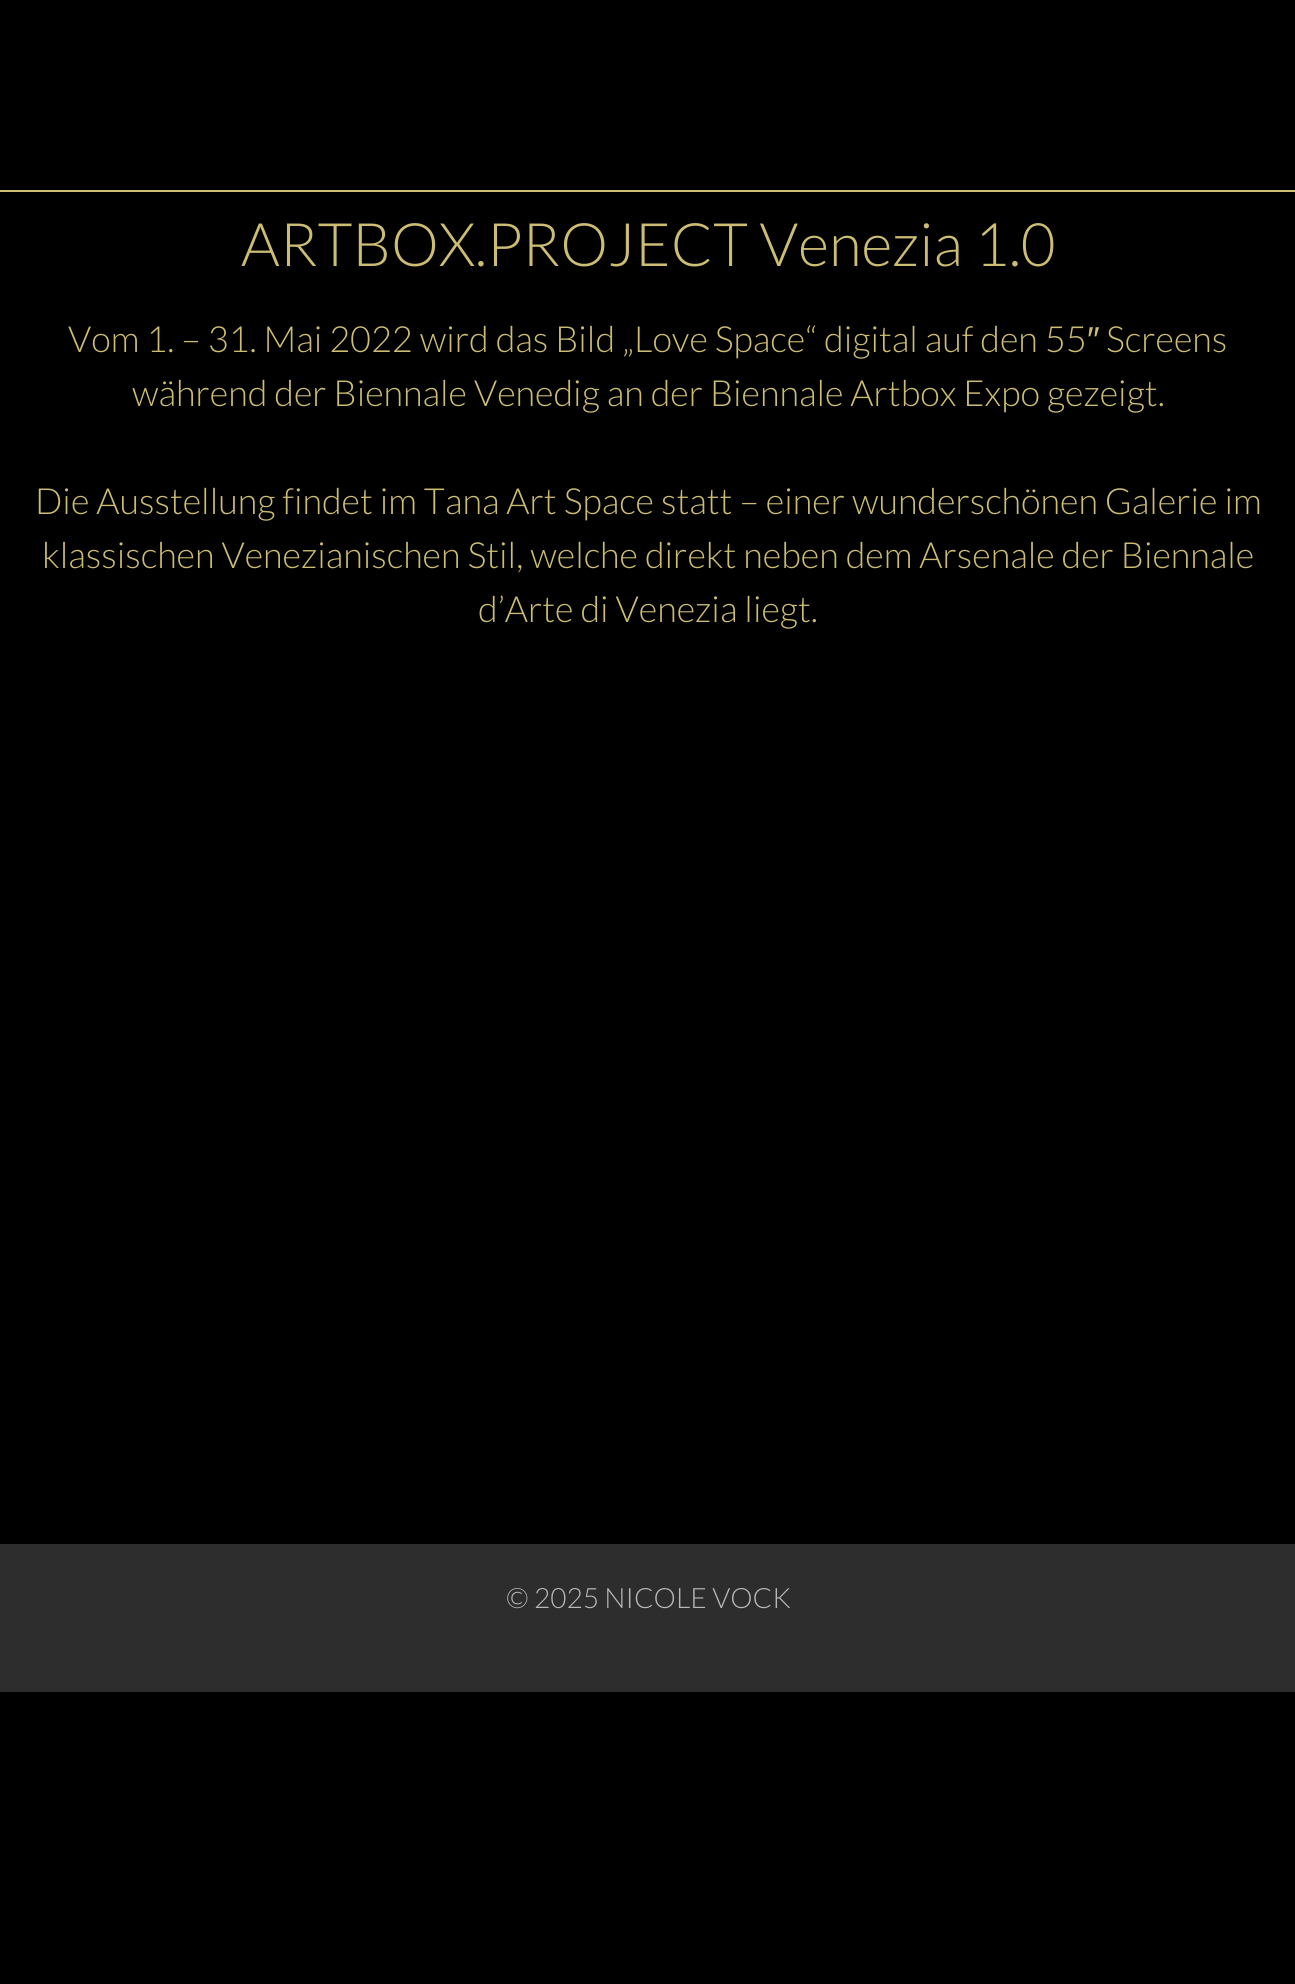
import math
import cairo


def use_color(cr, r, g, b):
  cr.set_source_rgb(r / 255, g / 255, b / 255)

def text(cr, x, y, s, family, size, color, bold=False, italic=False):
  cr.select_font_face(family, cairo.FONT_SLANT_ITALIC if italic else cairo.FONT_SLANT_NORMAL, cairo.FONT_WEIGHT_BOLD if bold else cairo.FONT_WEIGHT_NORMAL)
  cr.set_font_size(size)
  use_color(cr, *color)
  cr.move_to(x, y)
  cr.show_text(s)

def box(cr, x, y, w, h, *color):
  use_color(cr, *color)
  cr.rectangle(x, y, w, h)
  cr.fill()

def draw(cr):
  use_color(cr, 0, 0, 0)
  cr.paint()
  box(cr, 0, 190, 1295, 2, 204, 189, 115)
  box(cr, 0, 1544, 1295, 148, 45, 45, 45)
  text(cr, 241, 266, "ARTBOX.PROJECT Venezia 1.0", "Lato Light", 60, (204, 189, 115))
  text(cr, 68, 352, "Vom 1. – 31. Mai 2022 wird das Bild „Love Space“ digital auf den 55", "Lato Light", 36, (204, 189, 115))
  text(cr, 1087, 352, "″", "Liberation Sans", 36, (204, 189, 115))
  text(cr, 1106, 352, "Screens", "Lato Light", 36, (204, 189, 115))
  text(cr, 132, 406, "während der Biennale Venedig an der Biennale Artbox Expo gezeigt.", "Lato Light", 36, (204, 189, 115))
  text(cr, 35, 514, "Die Ausstellung findet im Tana Art Space statt – einer wunderschönen Galerie im", "Lato Light", 36, (204, 189, 115))
  text(cr, 42, 568, "klassischen Venezianischen Stil, welche direkt neben dem Arsenale der Biennale", "Lato Light", 36, (204, 189, 115))
  text(cr, 478, 622, "d’Arte di Venezia liegt.", "Lato Light", 36, (204, 189, 115))
  text(cr, 506, 1608, "© 2025 NICOLE VOCK", "Lato Light", 28, (183, 183, 183))


surface = cairo.ImageSurface(cairo.FORMAT_RGB24, 1295, 1984)
cr = cairo.Context(surface)
options = cairo.FontOptions()
options.set_hint_metrics(cairo.HINT_METRICS_OFF)
options.set_hint_style(cairo.HINT_STYLE_NONE)
cr.set_font_options(options)
cr.set_miter_limit(4)
draw(cr)
surface.write_to_png("out.png")
